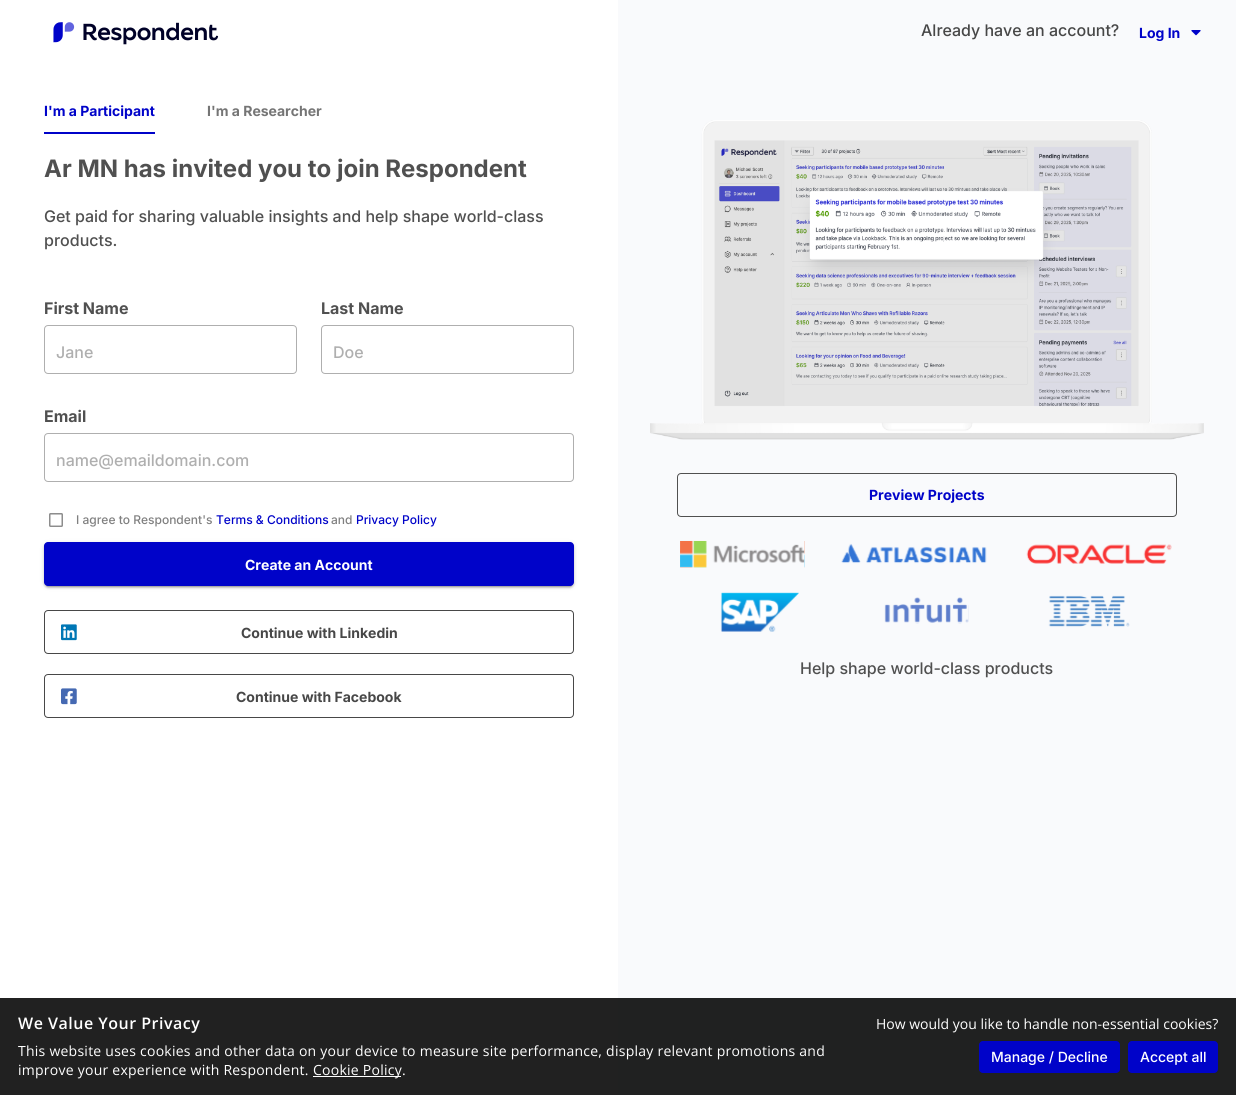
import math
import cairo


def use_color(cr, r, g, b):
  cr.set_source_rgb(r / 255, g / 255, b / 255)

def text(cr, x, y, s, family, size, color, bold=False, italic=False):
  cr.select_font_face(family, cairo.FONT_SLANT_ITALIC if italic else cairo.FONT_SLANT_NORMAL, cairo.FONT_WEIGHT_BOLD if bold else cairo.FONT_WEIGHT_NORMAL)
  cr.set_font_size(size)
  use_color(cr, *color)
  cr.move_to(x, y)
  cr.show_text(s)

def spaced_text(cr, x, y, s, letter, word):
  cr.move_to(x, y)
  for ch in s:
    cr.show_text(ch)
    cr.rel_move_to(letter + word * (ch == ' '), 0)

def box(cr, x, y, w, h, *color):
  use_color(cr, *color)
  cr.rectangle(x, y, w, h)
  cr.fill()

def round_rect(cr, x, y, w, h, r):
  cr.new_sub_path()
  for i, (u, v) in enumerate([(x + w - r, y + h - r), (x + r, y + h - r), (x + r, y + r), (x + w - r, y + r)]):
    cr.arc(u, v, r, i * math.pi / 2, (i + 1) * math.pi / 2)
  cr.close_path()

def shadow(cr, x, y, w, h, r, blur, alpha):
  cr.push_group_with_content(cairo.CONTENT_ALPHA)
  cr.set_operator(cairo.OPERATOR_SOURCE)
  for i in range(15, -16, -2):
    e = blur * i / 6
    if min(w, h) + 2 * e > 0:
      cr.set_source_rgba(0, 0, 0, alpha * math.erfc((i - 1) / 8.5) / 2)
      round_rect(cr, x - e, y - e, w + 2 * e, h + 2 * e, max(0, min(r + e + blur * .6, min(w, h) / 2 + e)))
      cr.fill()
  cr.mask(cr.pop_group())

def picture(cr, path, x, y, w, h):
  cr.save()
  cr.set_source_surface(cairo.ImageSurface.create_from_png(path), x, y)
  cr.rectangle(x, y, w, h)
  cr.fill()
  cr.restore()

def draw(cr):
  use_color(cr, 255, 255, 255)
  cr.paint()
  box(cr, 0, 998, 618, 97, 33, 33, 33)
  picture(cr, "img_01.png", 53, 22, 166, 23)
  box(cr, 618, 0, 618, 998, 249, 250, 252)
  picture(cr, "img_02.png", 1191, 30, 10, 6)
  box(cr, 44, 132, 111, 2, 0, 3, 201)
  round_rect(cr, 44.5, 325.5, 252, 48, 3.5)
  use_color(cr, 175, 175, 175)
  cr.set_line_width(1)
  cr.stroke()
  round_rect(cr, 321.5, 325.5, 252, 48, 3.5)
  cr.stroke()
  round_rect(cr, 44.5, 433.5, 529, 48, 3.5)
  cr.stroke()
  picture(cr, "img_03.png", 49, 513, 14, 14)
  use_color(cr, 0, 0, 0)
  shadow(cr, 44, 543, 530, 44, 4, 2.5, 0.12)
  shadow(cr, 44, 544, 530, 44, 4, 1, 0.14)
  shadow(cr, 46, 547, 526, 40, 2, 0.5, 0.2)
  use_color(cr, 0, 3, 201)
  round_rect(cr, 44, 542, 530, 44, 4)
  cr.fill()
  round_rect(cr, 44.5, 610.5, 529, 43, 3.5)
  use_color(cr, 71, 71, 71)
  cr.stroke()
  picture(cr, "img_04.png", 61, 624, 16, 17)
  round_rect(cr, 44.5, 674.5, 529, 43, 3.5)
  cr.stroke()
  picture(cr, "img_05.png", 61, 688, 16, 17)
  box(cr, 618, 998, 618, 97, 32, 33, 33)
  picture(cr, "img_06.png", 650, 120, 554, 320)
  round_rect(cr, 677.5, 473.5, 499, 43, 3.5)
  use_color(cr, 80, 80, 80)
  cr.stroke()
  picture(cr, "img_07.png", 680, 540, 492, 92)
  box(cr, 313, 1076, 88, 1, 255, 255, 255)
  use_color(cr, 0, 3, 201)
  round_rect(cr, 979, 1041, 141, 32, 4)
  cr.fill()
  round_rect(cr, 1128, 1041, 90, 32, 4)
  cr.fill()
  text(cr, 921, 36, "Already have an account?", "Inter Medium", 16, (71, 71, 71))
  text(cr, 1139, 38, "Log In", "Inter", 14, (0, 3, 201), bold=True)
  text(cr, 44, 116, "I'm a Participant", "Inter", 14, (0, 3, 201), bold=True)
  text(cr, 207, 116, "I'm a Researcher", "Inter", 14, (117, 117, 117), bold=True)
  text(cr, 44, 177, "Ar MN has invited you to join Respondent", "Inter", 24, (80, 80, 80), bold=True)
  text(cr, 44, 222, "Get paid for sharing valuable insights and help shape world-class", "Inter Medium", 16, (80, 80, 80))
  text(cr, 44, 246, "products.", "Inter Medium", 16, (80, 80, 80))
  text(cr, 44, 314, "First Name", "Inter", 16, (80, 80, 80), bold=True)
  text(cr, 56, 358, "Jane", "Inter Medium", 16, (175, 175, 175))
  text(cr, 321, 314, "Last Name", "Inter", 16, (80, 80, 80), bold=True)
  text(cr, 333, 358, "Doe", "Inter Medium", 16, (175, 175, 175))
  text(cr, 44, 422, "Email", "Inter", 16, (80, 80, 80), bold=True)
  text(cr, 56, 466, "name@emaildomain.com", "Inter Medium", 16, (175, 175, 175))
  text(cr, 76, 524, "I agree to Respondent's", "Inter Medium", 12, (128, 128, 128))
  text(cr, 216, 524, "Terms & Conditions", "Inter Medium", 12, (0, 3, 201))
  text(cr, 331, 524, "and", "Inter Medium", 12, (128, 128, 128))
  text(cr, 356, 524, "Privacy Policy", "Inter Medium", 12, (0, 3, 201))
  text(cr, 245, 570, "Create an Account", "Inter", 14, (255, 255, 255), bold=True)
  text(cr, 241, 638, "Continue with Linkedin", "Inter", 14, (71, 71, 71), bold=True)
  text(cr, 236, 702, "Continue with Facebook", "Inter", 14, (71, 71, 71), bold=True)
  text(cr, 869, 500, "Preview Projects", "Inter", 14, (0, 3, 201), bold=True)
  text(cr, 800, 674, "Help shape world-class products", "Inter Medium", 16, (80, 80, 80))
  cr.select_font_face("Open Sans SemiBold")
  use_color(cr, 255, 255, 255)
  spaced_text(cr, 18, 1029, "We Value Your Privacy", 0.5, 0)
  cr.select_font_face("Open Sans")
  cr.set_font_size(14)
  spaced_text(cr, 18, 1056, "This website uses cookies and other data on your device to measure site performance, display relevant promotions and", 0.25, 0)
  spaced_text(cr, 18, 1075, "improve your experience with Respondent.", 0.25, 0)
  spaced_text(cr, 313, 1075, "Cookie Policy.", 0.25, 0)
  text(cr, 876, 1029, "How would you like to handle non-essential cookies?", "Open Sans", 14, (255, 255, 255))
  text(cr, 991, 1062, "Manage / Decline", "Inter Medium", 14, (255, 255, 255))
  text(cr, 1140, 1062, "Accept all", "Inter Medium", 14, (255, 255, 255))


surface = cairo.ImageSurface(cairo.FORMAT_RGB24, 1236, 1095)
cr = cairo.Context(surface)
options = cairo.FontOptions()
options.set_hint_metrics(cairo.HINT_METRICS_OFF)
options.set_hint_style(cairo.HINT_STYLE_NONE)
cr.set_font_options(options)
cr.set_miter_limit(4)
draw(cr)
surface.write_to_png("out.png")
